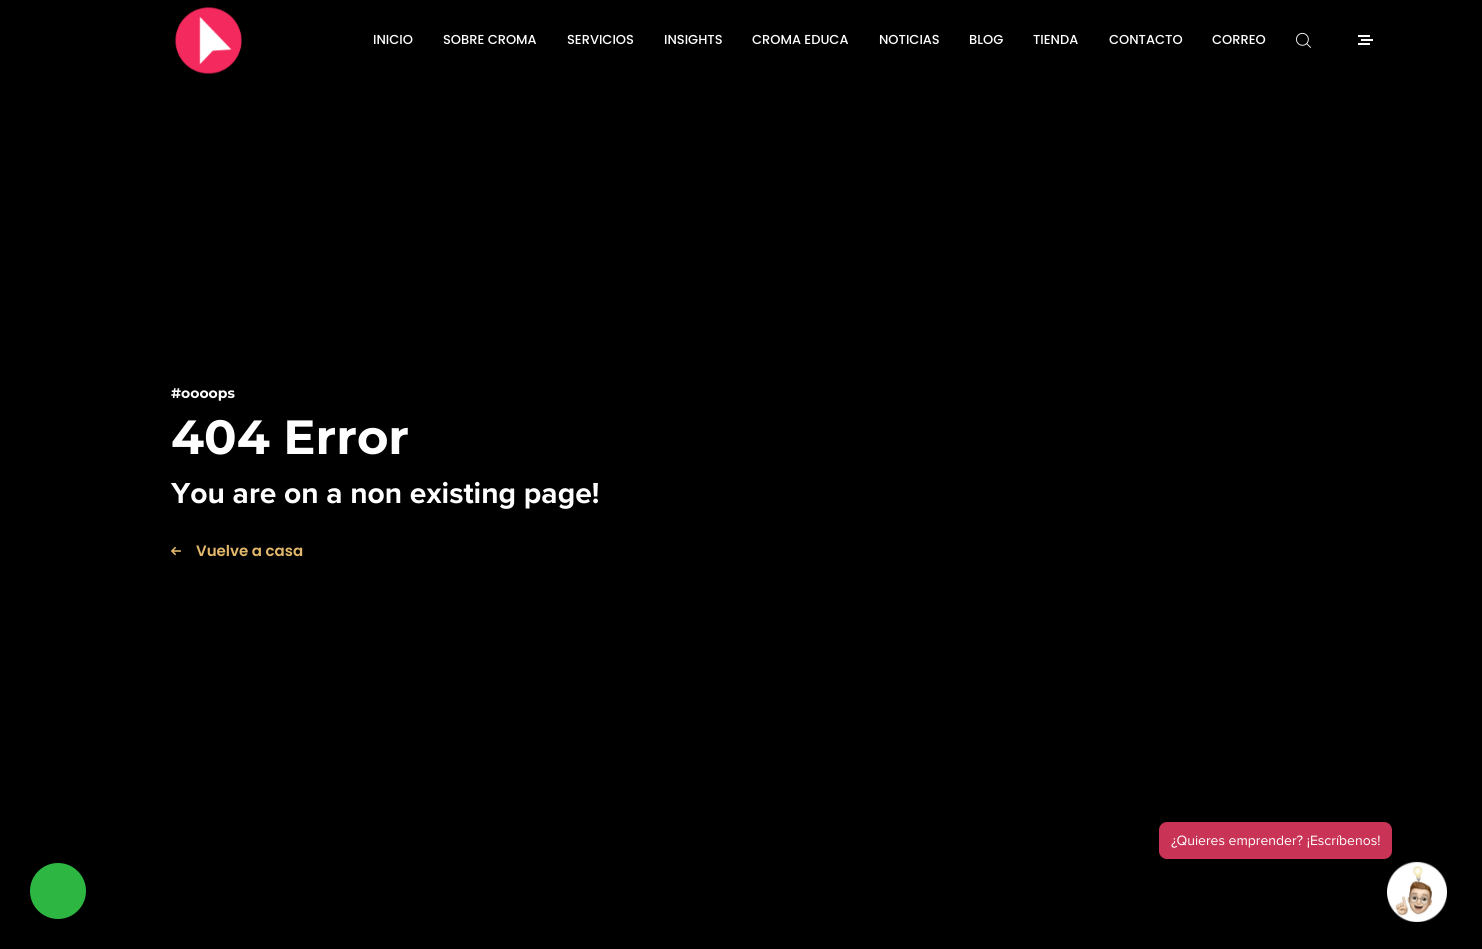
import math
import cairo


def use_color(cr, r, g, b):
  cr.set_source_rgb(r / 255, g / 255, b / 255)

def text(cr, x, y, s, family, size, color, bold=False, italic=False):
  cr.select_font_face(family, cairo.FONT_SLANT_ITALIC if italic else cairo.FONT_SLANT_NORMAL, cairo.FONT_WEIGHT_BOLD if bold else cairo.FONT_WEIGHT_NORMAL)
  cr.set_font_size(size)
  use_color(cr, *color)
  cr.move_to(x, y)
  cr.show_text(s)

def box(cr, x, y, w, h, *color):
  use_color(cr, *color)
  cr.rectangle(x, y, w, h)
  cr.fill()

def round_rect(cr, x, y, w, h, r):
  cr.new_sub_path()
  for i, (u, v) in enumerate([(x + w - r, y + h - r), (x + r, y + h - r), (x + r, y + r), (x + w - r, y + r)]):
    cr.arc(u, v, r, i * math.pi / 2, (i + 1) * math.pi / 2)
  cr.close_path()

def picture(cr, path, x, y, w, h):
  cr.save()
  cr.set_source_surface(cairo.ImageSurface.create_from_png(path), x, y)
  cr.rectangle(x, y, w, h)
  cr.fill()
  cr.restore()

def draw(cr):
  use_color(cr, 0, 0, 0)
  cr.paint()
  picture(cr, "img_01.png", 175, 7, 67, 67)
  picture(cr, "img_02.png", 1296, 32, 15, 16)
  box(cr, 1358, 35, 12, 2, 255, 255, 255)
  box(cr, 1361, 39, 12, 2, 255, 255, 255)
  box(cr, 1358, 43, 12, 2, 255, 255, 255)
  picture(cr, "img_03.png", 171, 546, 10, 10)
  use_color(cr, 201, 51, 86)
  round_rect(cr, 1159, 822, 233, 37, 8)
  cr.fill()
  picture(cr, "img_04.png", 1387, 861, 60, 61)
  use_color(cr, 45, 183, 66)
  cr.arc(58, 891, 28, 0, 2 * math.pi)
  cr.fill()
  text(cr, 373, 44, "INICIO", "Poppins Medium", 13, (255, 255, 255))
  text(cr, 443, 44, "SOBRE CROMA", "Poppins Medium", 13, (255, 255, 255))
  text(cr, 567, 44, "SERVICIOS", "Poppins Medium", 13, (255, 255, 255))
  text(cr, 664, 44, "INSIGHTS", "Poppins Medium", 13, (255, 255, 255))
  text(cr, 752, 44, "CROMA EDUCA", "Poppins Medium", 13, (255, 255, 255))
  text(cr, 879, 44, "NOTICIAS", "Poppins Medium", 13, (255, 255, 255))
  text(cr, 969, 44, "BLOG", "Poppins Medium", 13, (255, 255, 255))
  text(cr, 1033, 44, "TIENDA", "Poppins Medium", 13, (255, 255, 255))
  text(cr, 1109, 44, "CONTACTO", "Poppins Medium", 13, (255, 255, 255))
  text(cr, 1212, 44, "CORREO", "Poppins Medium", 13, (255, 255, 255))
  text(cr, 171, 398, "#oooops", "Montserrat", 14, (255, 255, 255), bold=True)
  text(cr, 171, 454, "404 Error", "Montserrat", 48, (255, 255, 255), bold=True)
  text(cr, 171, 503, "You are on a non existing page!", "Proxima Nova", 30, (255, 255, 255), bold=True)
  text(cr, 196, 556, "Vuelve a casa", "Poppins SemiBold", 15, (228, 185, 108))
  text(cr, 1171, 845, "¿Quieres emprender? ¡Escríbenos!", "Proxima Nova", 14, (255, 255, 255))


surface = cairo.ImageSurface(cairo.FORMAT_RGB24, 1482, 949)
cr = cairo.Context(surface)
options = cairo.FontOptions()
options.set_hint_metrics(cairo.HINT_METRICS_OFF)
options.set_hint_style(cairo.HINT_STYLE_NONE)
cr.set_font_options(options)
cr.set_miter_limit(4)
draw(cr)
surface.write_to_png("out.png")
